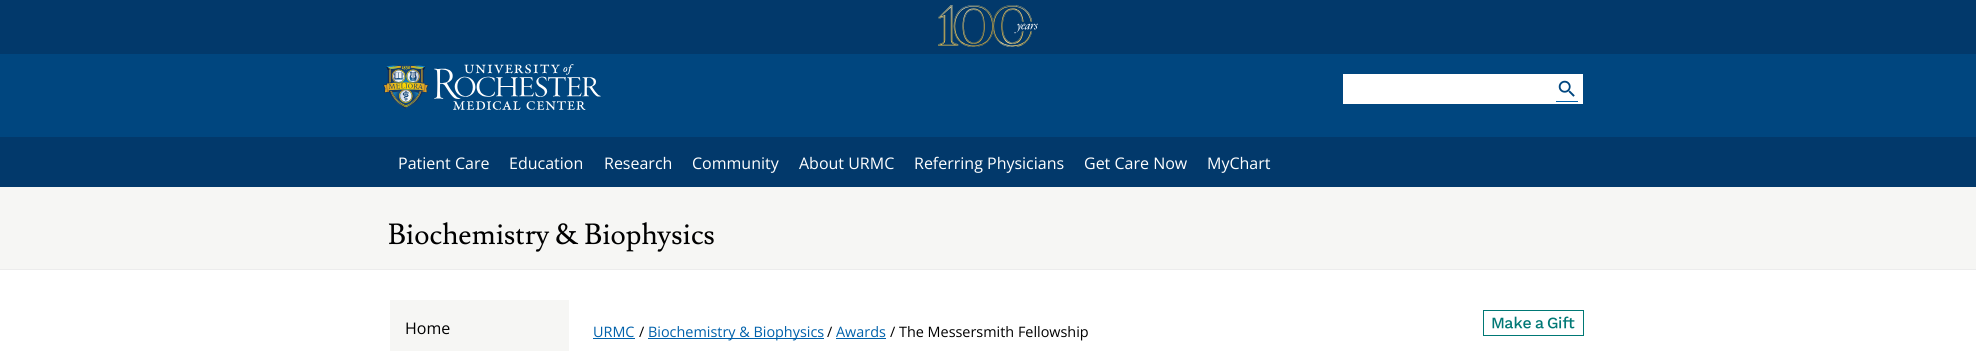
import math
import cairo


def use_color(cr, r, g, b):
  cr.set_source_rgb(r / 255, g / 255, b / 255)

def text(cr, x, y, s, family, size, color, bold=False, italic=False):
  cr.select_font_face(family, cairo.FONT_SLANT_ITALIC if italic else cairo.FONT_SLANT_NORMAL, cairo.FONT_WEIGHT_BOLD if bold else cairo.FONT_WEIGHT_NORMAL)
  cr.set_font_size(size)
  use_color(cr, *color)
  cr.move_to(x, y)
  cr.show_text(s)

def box(cr, x, y, w, h, *color):
  use_color(cr, *color)
  cr.rectangle(x, y, w, h)
  cr.fill()

def picture(cr, path, x, y, w, h):
  cr.save()
  cr.set_source_surface(cairo.ImageSurface.create_from_png(path), x, y)
  cr.rectangle(x, y, w, h)
  cr.fill()
  cr.restore()

def draw(cr):
  use_color(cr, 0, 70, 127)
  cr.paint()
  box(cr, 0, 0, 1976, 54, 2, 57, 107)
  picture(cr, "img_01.png", 938, 5, 100, 42)
  picture(cr, "img_02.png", 383, 64, 218, 46)
  box(cr, 1343, 74, 240, 30, 255, 255, 255)
  picture(cr, "img_03.png", 1558, 80, 17, 17)
  box(cr, 1556, 101, 22, 1, 0, 97, 171)
  box(cr, 0, 137, 1976, 50, 2, 57, 107)
  box(cr, 0, 270, 1976, 81, 255, 255, 255)
  box(cr, 0, 187, 1976, 82, 246, 246, 244)
  box(cr, 0, 269, 1976, 1, 236, 236, 236)
  box(cr, 390, 300, 179, 51, 246, 246, 244)
  box(cr, 593, 338, 42, 1, 0, 97, 171)
  box(cr, 648, 338, 176, 1, 0, 97, 171)
  box(cr, 836, 338, 50, 1, 0, 97, 171)
  picture(cr, "img_04.png", 1483, 310, 101, 26)
  text(cr, 398, 169, "Patient Care", "Open Sans", 16, (255, 255, 255))
  text(cr, 509, 169, "Education", "Open Sans", 16, (255, 255, 255))
  text(cr, 604, 169, "Research", "Open Sans", 16, (255, 255, 255))
  text(cr, 692, 169, "Community", "Open Sans", 16, (255, 255, 255))
  text(cr, 799, 169, "About URMC", "Open Sans", 16, (255, 255, 255))
  text(cr, 914, 169, "Referring Physicians", "Open Sans", 16, (255, 255, 255))
  text(cr, 1084, 169, "Get Care Now", "Open Sans", 16, (255, 255, 255))
  text(cr, 1207, 169, "MyChart", "Open Sans", 16, (255, 255, 255))
  text(cr, 388, 244, "Biochemistry & Biophysics", "Lusitana", 28.75, (0, 0, 0))
  text(cr, 405, 334, "Home", "Open Sans", 16, (0, 0, 0))
  text(cr, 593, 337, "URMC", "Open Sans", 14.4, (0, 97, 171))
  text(cr, 639, 337, "/", "Open Sans", 14.4, (0, 0, 0))
  text(cr, 648, 337, "Biochemistry & Biophysics", "Open Sans", 14.4, (0, 97, 171))
  text(cr, 827, 337, "/", "Open Sans", 14.4, (0, 0, 0))
  text(cr, 836, 337, "Awards", "Open Sans", 14.4, (0, 97, 171))
  text(cr, 890, 337, "/ The Messersmith Fellowship", "Open Sans", 14.4, (0, 0, 0))


surface = cairo.ImageSurface(cairo.FORMAT_RGB24, 1976, 351)
cr = cairo.Context(surface)
options = cairo.FontOptions()
options.set_hint_metrics(cairo.HINT_METRICS_OFF)
options.set_hint_style(cairo.HINT_STYLE_NONE)
cr.set_font_options(options)
cr.set_miter_limit(4)
draw(cr)
surface.write_to_png("out.png")
